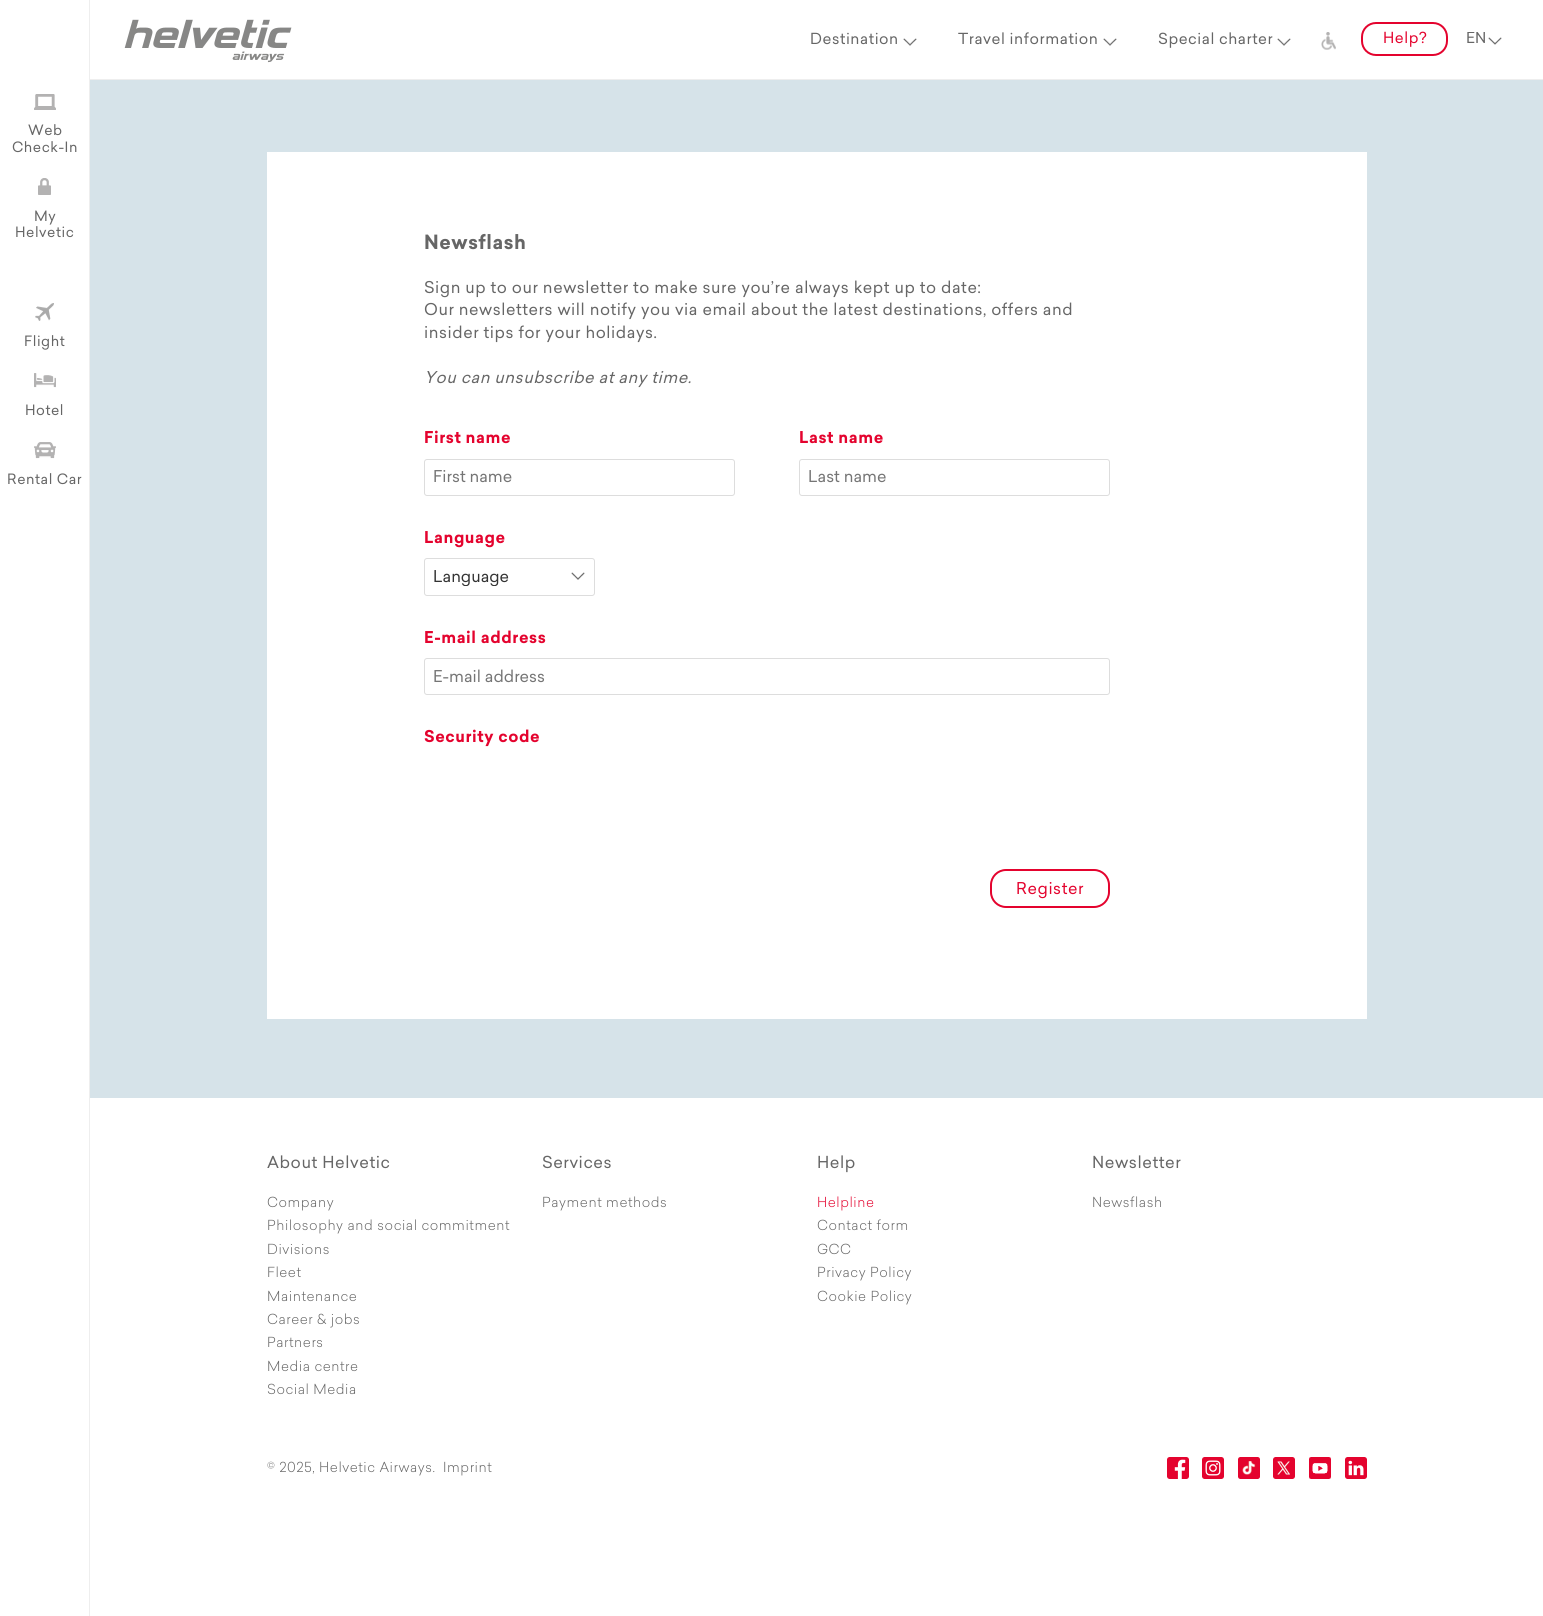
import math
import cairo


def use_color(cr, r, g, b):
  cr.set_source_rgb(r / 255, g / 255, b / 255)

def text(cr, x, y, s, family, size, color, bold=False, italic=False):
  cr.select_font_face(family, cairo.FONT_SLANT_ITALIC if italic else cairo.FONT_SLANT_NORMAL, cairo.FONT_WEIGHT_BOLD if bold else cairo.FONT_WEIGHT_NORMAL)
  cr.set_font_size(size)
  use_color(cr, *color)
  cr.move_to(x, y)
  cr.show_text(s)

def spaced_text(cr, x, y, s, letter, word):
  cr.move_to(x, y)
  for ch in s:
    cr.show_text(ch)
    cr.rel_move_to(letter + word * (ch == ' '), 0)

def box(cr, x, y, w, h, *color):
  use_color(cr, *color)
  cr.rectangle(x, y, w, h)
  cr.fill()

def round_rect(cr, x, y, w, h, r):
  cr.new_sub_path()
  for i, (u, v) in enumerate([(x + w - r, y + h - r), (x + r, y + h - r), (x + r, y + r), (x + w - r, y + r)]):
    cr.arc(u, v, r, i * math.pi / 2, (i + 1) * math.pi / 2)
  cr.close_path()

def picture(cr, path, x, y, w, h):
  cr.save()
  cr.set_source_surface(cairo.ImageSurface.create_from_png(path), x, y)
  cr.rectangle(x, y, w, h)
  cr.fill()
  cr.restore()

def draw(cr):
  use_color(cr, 255, 255, 255)
  cr.paint()
  box(cr, 90, 79, 1453, 1, 238, 238, 238)
  picture(cr, "img_01.png", 124, 19, 168, 44)
  picture(cr, "img_02.png", 903, 38, 14, 8)
  picture(cr, "img_02.png", 1103, 38, 14, 8)
  picture(cr, "img_02.png", 1277, 38, 14, 8)
  picture(cr, "img_03.png", 1321, 32, 15, 18)
  round_rect(cr, 1362, 23, 85, 32, 14)
  use_color(cr, 228, 3, 46)
  cr.stroke()
  picture(cr, "img_04.png", 1488, 37, 14, 8)
  box(cr, 89, 0, 1, 1616, 238, 238, 238)
  picture(cr, "img_05.png", 34, 94, 22, 16)
  picture(cr, "img_06.png", 38, 178, 13, 17)
  picture(cr, "img_07.png", 35, 303, 19, 18)
  picture(cr, "img_08.png", 34, 373, 22, 15)
  picture(cr, "img_09.png", 34, 442, 22, 17)
  box(cr, 90, 80, 1453, 1018, 214, 227, 233)
  box(cr, 267, 152, 1100, 867, 255, 255, 255)
  round_rect(cr, 424.5, 459.5, 310, 36, 2.5)
  use_color(cr, 221, 221, 221)
  cr.set_line_width(1)
  cr.stroke()
  round_rect(cr, 799.5, 459.5, 310, 36, 2.5)
  cr.stroke()
  picture(cr, "img_10.png", 571, 572, 14, 8)
  round_rect(cr, 424.5, 558.5, 170, 37, 2.5)
  cr.stroke()
  round_rect(cr, 424.5, 658.5, 685, 36, 2.5)
  cr.stroke()
  round_rect(cr, 991, 870, 118, 37, 15)
  use_color(cr, 228, 3, 46)
  cr.set_line_width(2)
  cr.stroke()
  picture(cr, "img_11.png", 1167, 1457, 22, 22)
  picture(cr, "img_12.png", 1202, 1457, 22, 22)
  picture(cr, "img_13.png", 1238, 1457, 22, 22)
  picture(cr, "img_14.png", 1273, 1457, 22, 22)
  picture(cr, "img_15.png", 1309, 1457, 22, 22)
  picture(cr, "img_16.png", 1345, 1457, 22, 22)
  cr.select_font_face("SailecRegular")
  cr.set_font_size(15)
  use_color(cr, 102, 102, 102)
  spaced_text(cr, 810, 44, "Destination", 0.55, 0)
  spaced_text(cr, 958, 44, "Travel information", 0.55, 0)
  spaced_text(cr, 1158, 44, "Special charter", 0.55, 0)
  use_color(cr, 228, 3, 46)
  spaced_text(cr, 1383, 43, "Help?", 0.55, 0)
  cr.save()
  cr.rectangle(1466, 32, 21, 15)
  cr.clip()
  text(cr, 1466, 43, "EN", "SailecRegular", 15, (102, 102, 102))
  cr.restore()
  cr.set_font_size(14)
  use_color(cr, 102, 102, 102)
  spaced_text(cr, 28, 135, "Web", 0.55, 0)
  spaced_text(cr, 12, 152, "Check-In", 0.55, 0)
  spaced_text(cr, 34, 221, "My", 0.55, 0)
  spaced_text(cr, 15, 237, "Helvetic", 0.55, 0)
  spaced_text(cr, 24, 346, "Flight", 0.55, 0)
  spaced_text(cr, 25, 415, "Hotel", 0.55, 0)
  spaced_text(cr, 7, 484, "Rental Car", 0.55, 0)
  cr.select_font_face("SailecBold")
  cr.set_font_size(19.25)
  spaced_text(cr, 424, 249, "Newsflash", 0.55, 0)
  cr.select_font_face("SailecRegular")
  cr.set_font_size(16)
  spaced_text(cr, 424, 293, "Sign up to our newsletter to make sure you’re always kept up to date:", 0.55, 0)
  spaced_text(cr, 424, 315, "Our newsletters will notify you via email about the latest destinations, offers and", 0.55, 0)
  spaced_text(cr, 424, 338, "insider tips for your holidays.", 0.55, 0)
  cr.select_font_face("SailecRegular", cairo.FONT_SLANT_ITALIC)
  spaced_text(cr, 424, 383, "You can unsubscribe at any time.", 0.55, 0)
  cr.select_font_face("SailecBold")
  use_color(cr, 228, 3, 46)
  spaced_text(cr, 424, 443, "First name", 0.55, 0)
  text(cr, 433, 482, "First name", "SailecRegular", 16, (117, 117, 117))
  cr.select_font_face("SailecBold")
  use_color(cr, 228, 3, 46)
  spaced_text(cr, 799, 443, "Last name", 0.55, 0)
  text(cr, 808, 482, "Last name", "SailecRegular", 16, (117, 117, 117))
  cr.select_font_face("SailecBold")
  use_color(cr, 228, 3, 46)
  spaced_text(cr, 424, 543, "Language", 0.55, 0)
  cr.save()
  cr.rectangle(433, 570, 135, 16)
  cr.clip()
  text(cr, 433, 582, "Language", "SailecRegular", 16, (51, 51, 51))
  cr.restore()
  spaced_text(cr, 424, 643, "E-mail address", 0.55, 0)
  text(cr, 433, 682, "E-mail address", "SailecRegular", 16, (117, 117, 117))
  cr.select_font_face("SailecBold")
  use_color(cr, 228, 3, 46)
  spaced_text(cr, 424, 742, "Security code", 0.55, 0)
  cr.select_font_face("SailecRegular")
  spaced_text(cr, 1016, 894, "Register", 0.55, 0)
  cr.set_font_size(16.25)
  use_color(cr, 102, 102, 102)
  spaced_text(cr, 267, 1168, "About Helvetic", 0.55, 0)
  cr.select_font_face("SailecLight")
  cr.set_font_size(13.6)
  spaced_text(cr, 267, 1207, "Company", 0.55, 0)
  spaced_text(cr, 267, 1230, "Philosophy and social commitment", 0.55, 0)
  spaced_text(cr, 267, 1254, "Divisions", 0.55, 0)
  spaced_text(cr, 267, 1277, "Fleet", 0.55, 0)
  spaced_text(cr, 267, 1301, "Maintenance", 0.55, 0)
  spaced_text(cr, 267, 1324, "Career & jobs", 0.55, 0)
  spaced_text(cr, 267, 1347, "Partners", 0.55, 0)
  spaced_text(cr, 267, 1371, "Media centre", 0.55, 0)
  spaced_text(cr, 267, 1394, "Social Media", 0.55, 0)
  cr.select_font_face("SailecRegular")
  cr.set_font_size(16.25)
  spaced_text(cr, 542, 1168, "Services", 0.55, 0)
  cr.select_font_face("SailecLight")
  cr.set_font_size(13.6)
  spaced_text(cr, 542, 1207, "Payment methods", 0.55, 0)
  cr.select_font_face("SailecRegular")
  cr.set_font_size(16.25)
  spaced_text(cr, 817, 1168, "Help", 0.55, 0)
  cr.select_font_face("SailecLight")
  cr.set_font_size(13.6)
  use_color(cr, 228, 3, 46)
  spaced_text(cr, 817, 1207, "Helpline", 0.55, 0)
  use_color(cr, 102, 102, 102)
  spaced_text(cr, 817, 1230, "Contact form", 0.55, 0)
  spaced_text(cr, 817, 1254, "GCC", 0.55, 0)
  spaced_text(cr, 817, 1277, "Privacy Policy", 0.55, 0)
  spaced_text(cr, 817, 1301, "Cookie Policy", 0.55, 0)
  cr.select_font_face("SailecRegular")
  cr.set_font_size(16.25)
  spaced_text(cr, 1092, 1168, "Newsletter", 0.55, 0)
  cr.select_font_face("SailecLight")
  cr.set_font_size(13.6)
  spaced_text(cr, 1092, 1207, "Newsflash", 0.55, 0)
  spaced_text(cr, 267, 1472, "© 2025, Helvetic Airways.", 0.55, 0)
  spaced_text(cr, 443, 1472, "Imprint", 0.55, 0)


surface = cairo.ImageSurface(cairo.FORMAT_RGB24, 1543, 1616)
cr = cairo.Context(surface)
options = cairo.FontOptions()
options.set_hint_metrics(cairo.HINT_METRICS_OFF)
options.set_hint_style(cairo.HINT_STYLE_NONE)
cr.set_font_options(options)
cr.set_miter_limit(4)
draw(cr)
surface.write_to_png("out.png")
